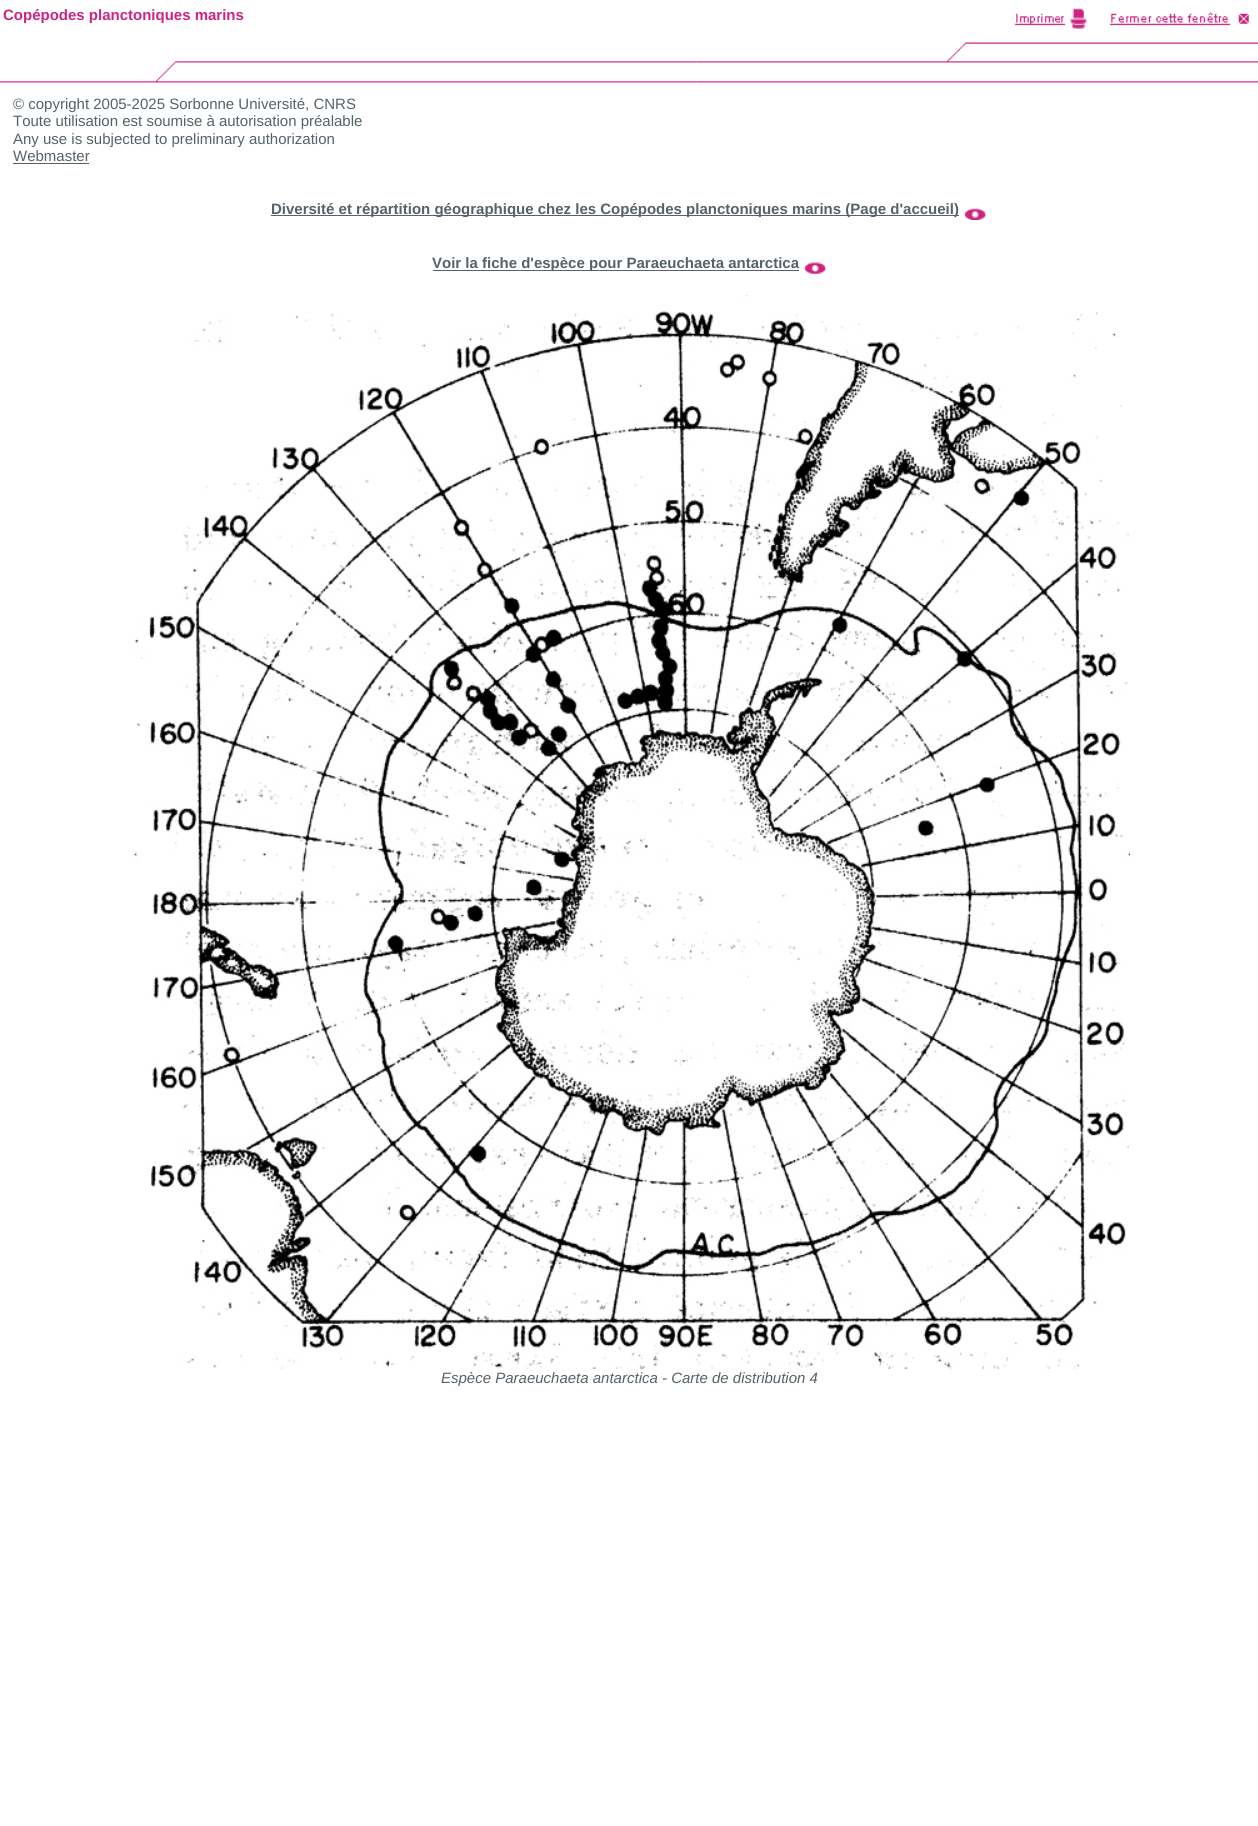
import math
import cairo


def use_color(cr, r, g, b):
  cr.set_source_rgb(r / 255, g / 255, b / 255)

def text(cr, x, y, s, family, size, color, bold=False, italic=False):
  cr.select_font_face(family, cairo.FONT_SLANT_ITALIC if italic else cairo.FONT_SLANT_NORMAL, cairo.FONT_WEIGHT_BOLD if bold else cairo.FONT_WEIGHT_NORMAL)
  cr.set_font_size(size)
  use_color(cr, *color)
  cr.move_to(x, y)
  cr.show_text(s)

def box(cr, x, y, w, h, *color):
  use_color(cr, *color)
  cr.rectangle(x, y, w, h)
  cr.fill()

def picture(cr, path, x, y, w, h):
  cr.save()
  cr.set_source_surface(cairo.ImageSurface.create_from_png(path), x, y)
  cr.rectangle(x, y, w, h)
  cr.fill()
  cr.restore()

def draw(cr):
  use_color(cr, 255, 255, 255)
  cr.paint()
  picture(cr, "img_01.png", 0, 61, 182, 22)
  picture(cr, "img_02.png", 181, 61, 516, 22)
  picture(cr, "img_03.png", 696, 8, 562, 75)
  box(cr, 13, 163, 76, 1, 85, 98, 104)
  box(cr, 271, 215, 688, 1, 85, 98, 104)
  picture(cr, "img_04.png", 964, 208, 23, 12)
  box(cr, 433, 270, 366, 1, 85, 98, 104)
  picture(cr, "img_05.png", 804, 262, 23, 12)
  picture(cr, "img_06.png", 133, 295, 997, 1074)
  text(cr, 3, 20, "Copépodes planctoniques marins", "Liberation Sans", 15, (205, 36, 129), bold=True)
  text(cr, 13, 109, "© copyright 2005-2025 Sorbonne Université, CNRS", "Liberation Sans", 15, (85, 98, 104))
  text(cr, 13, 126, "Toute utilisation est soumise à autorisation préalable", "Liberation Sans", 15, (85, 98, 104))
  text(cr, 13, 144, "Any use is subjected to preliminary authorization", "Liberation Sans", 15, (85, 98, 104))
  text(cr, 13, 161, "Webmaster", "Liberation Sans", 15, (85, 98, 104))
  text(cr, 271, 214, "Diversité et répartition géographique chez les Copépodes planctoniques marins (Page d'accueil)", "Liberation Sans", 15, (85, 98, 104), bold=True)
  text(cr, 432, 268, "Voir la fiche d'espèce pour Paraeuchaeta antarctica", "Liberation Sans", 15, (85, 98, 104), bold=True)
  text(cr, 441, 1383, "Espèce Paraeuchaeta antarctica - Carte de distribution 4", "Liberation Sans", 15, (85, 98, 104), italic=True)


surface = cairo.ImageSurface(cairo.FORMAT_RGB24, 1258, 1826)
cr = cairo.Context(surface)
options = cairo.FontOptions()
options.set_hint_metrics(cairo.HINT_METRICS_OFF)
options.set_hint_style(cairo.HINT_STYLE_NONE)
cr.set_font_options(options)
cr.set_miter_limit(4)
draw(cr)
surface.write_to_png("out.png")
